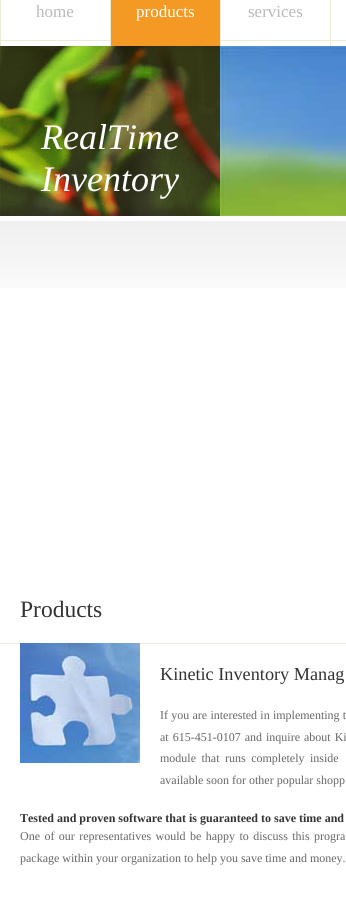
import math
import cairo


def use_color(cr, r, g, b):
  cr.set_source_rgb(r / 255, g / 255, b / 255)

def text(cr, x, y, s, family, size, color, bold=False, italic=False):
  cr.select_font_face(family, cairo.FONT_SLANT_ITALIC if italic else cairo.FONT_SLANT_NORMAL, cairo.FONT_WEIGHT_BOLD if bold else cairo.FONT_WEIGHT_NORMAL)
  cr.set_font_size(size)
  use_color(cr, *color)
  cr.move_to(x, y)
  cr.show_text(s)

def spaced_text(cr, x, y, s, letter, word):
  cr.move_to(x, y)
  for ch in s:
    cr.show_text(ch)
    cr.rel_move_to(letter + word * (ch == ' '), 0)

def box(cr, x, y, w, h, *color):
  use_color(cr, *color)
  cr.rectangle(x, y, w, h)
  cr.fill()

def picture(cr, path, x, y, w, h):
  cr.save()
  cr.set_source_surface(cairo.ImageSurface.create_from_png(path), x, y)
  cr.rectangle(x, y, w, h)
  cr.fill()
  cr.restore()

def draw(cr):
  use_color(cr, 255, 255, 255)
  cr.paint()
  picture(cr, "img_01.png", 0, 40, 346, 248)
  box(cr, 0, 0, 1, 46, 237, 235, 213)
  box(cr, 110, 0, 1, 46, 237, 235, 213)
  box(cr, 111, 0, 109, 46, 244, 154, 36)
  box(cr, 220, 0, 1, 46, 237, 235, 213)
  box(cr, 330, 0, 1, 46, 237, 235, 213)
  picture(cr, "img_02.png", 0, 46, 220, 170)
  picture(cr, "img_03.png", 220, 46, 126, 170)
  box(cr, 0, 643, 346, 1, 237, 235, 213)
  picture(cr, "img_04.png", 20, 643, 120, 120)
  text(cr, 36, 17, "home", "Liberation Serif", 17, (186, 186, 186))
  text(cr, 136, 17, "products", "Liberation Serif", 17, (255, 255, 255))
  text(cr, 248, 17, "services", "Liberation Serif", 17, (186, 186, 186))
  text(cr, 41, 149, "RealTime", "Liberation Serif", 36, (255, 255, 255), italic=True)
  text(cr, 41, 191, "Inventory", "Liberation Serif", 36, (255, 255, 255), italic=True)
  text(cr, 20, 617, "Products", "Liberation Serif", 23.5, (51, 51, 51))
  text(cr, 160, 680, "Kinetic Inventory Manag", "Liberation Serif", 18.25, (51, 51, 51))
  cr.set_font_size(12)
  use_color(cr, 102, 102, 102)
  spaced_text(cr, 160, 719, "If you are interested in implementing t", 0, 0.25)
  spaced_text(cr, 160, 741, "at 615-451-0107 and inquire about Ki", 0, 1)
  spaced_text(cr, 160, 762, "module that runs completely inside", 0, 2.5)
  text(cr, 160, 784, "available soon for other popular shopp", "Liberation Serif", 12, (102, 102, 102))
  text(cr, 20, 822, "Tested and proven software that is guaranteed to save time and", "Liberation Serif", 12, (51, 51, 51), bold=True)
  cr.select_font_face("Liberation Serif")
  use_color(cr, 102, 102, 102)
  spaced_text(cr, 20, 840, "One of our representatives would be happy to discuss this progra", 0, 1.4)
  text(cr, 20, 862, "package within your organization to help you save time and money.", "Liberation Serif", 12, (102, 102, 102))


surface = cairo.ImageSurface(cairo.FORMAT_RGB24, 346, 921)
cr = cairo.Context(surface)
options = cairo.FontOptions()
options.set_hint_metrics(cairo.HINT_METRICS_OFF)
options.set_hint_style(cairo.HINT_STYLE_NONE)
cr.set_font_options(options)
cr.set_miter_limit(4)
draw(cr)
surface.write_to_png("out.png")
